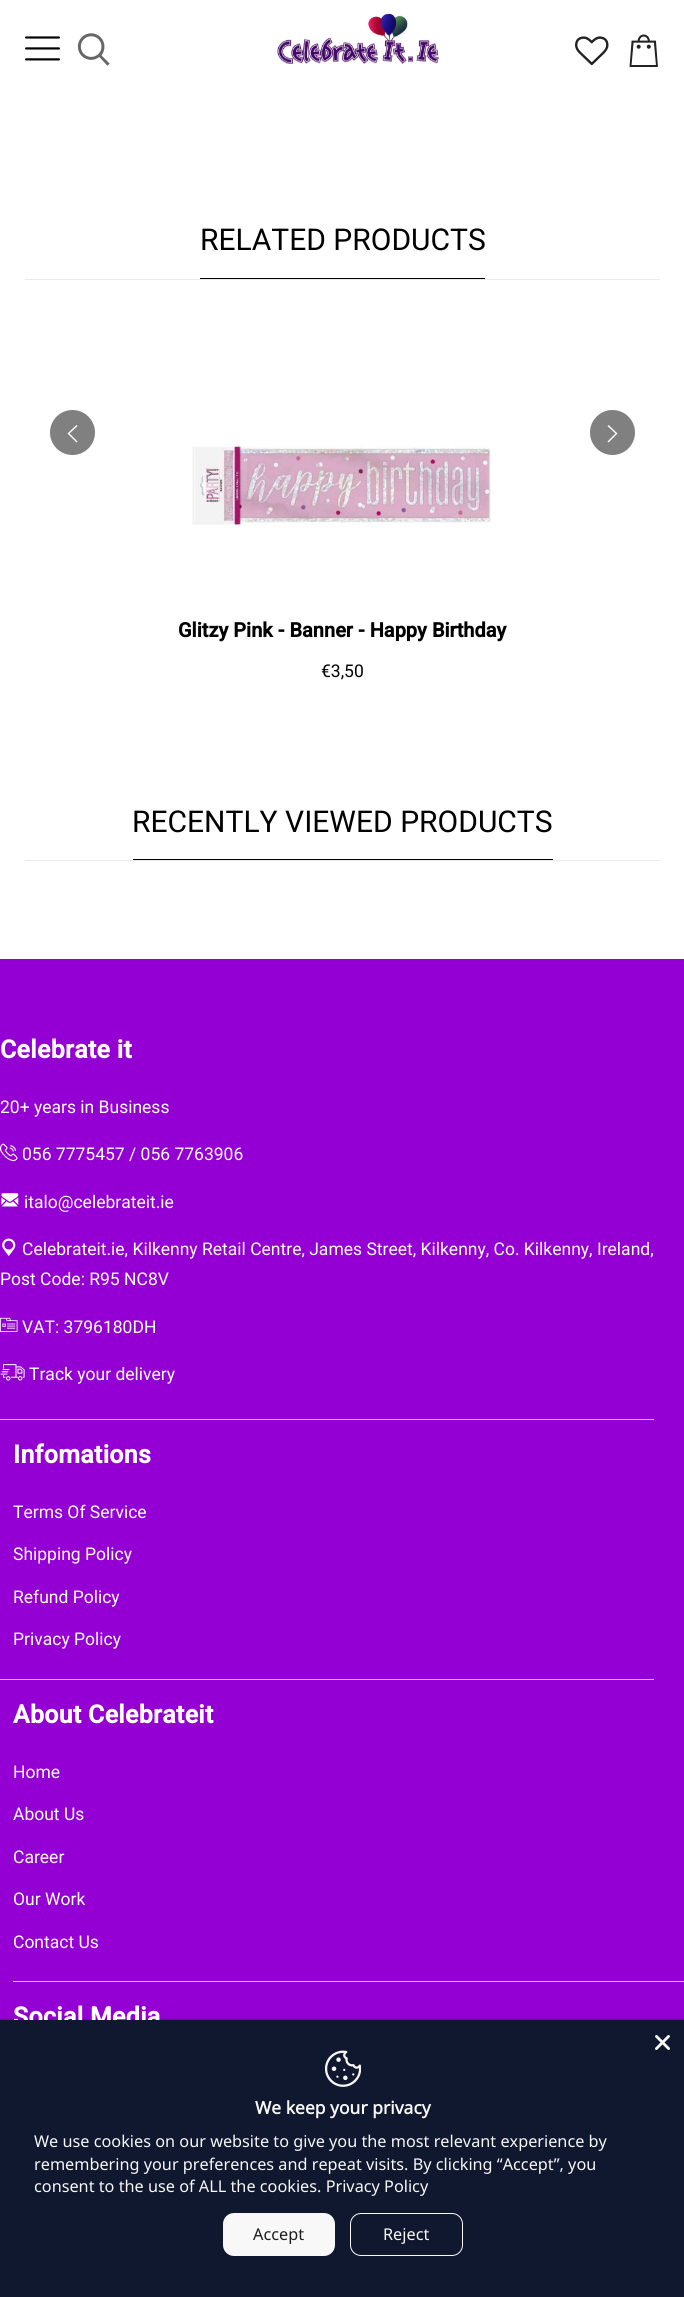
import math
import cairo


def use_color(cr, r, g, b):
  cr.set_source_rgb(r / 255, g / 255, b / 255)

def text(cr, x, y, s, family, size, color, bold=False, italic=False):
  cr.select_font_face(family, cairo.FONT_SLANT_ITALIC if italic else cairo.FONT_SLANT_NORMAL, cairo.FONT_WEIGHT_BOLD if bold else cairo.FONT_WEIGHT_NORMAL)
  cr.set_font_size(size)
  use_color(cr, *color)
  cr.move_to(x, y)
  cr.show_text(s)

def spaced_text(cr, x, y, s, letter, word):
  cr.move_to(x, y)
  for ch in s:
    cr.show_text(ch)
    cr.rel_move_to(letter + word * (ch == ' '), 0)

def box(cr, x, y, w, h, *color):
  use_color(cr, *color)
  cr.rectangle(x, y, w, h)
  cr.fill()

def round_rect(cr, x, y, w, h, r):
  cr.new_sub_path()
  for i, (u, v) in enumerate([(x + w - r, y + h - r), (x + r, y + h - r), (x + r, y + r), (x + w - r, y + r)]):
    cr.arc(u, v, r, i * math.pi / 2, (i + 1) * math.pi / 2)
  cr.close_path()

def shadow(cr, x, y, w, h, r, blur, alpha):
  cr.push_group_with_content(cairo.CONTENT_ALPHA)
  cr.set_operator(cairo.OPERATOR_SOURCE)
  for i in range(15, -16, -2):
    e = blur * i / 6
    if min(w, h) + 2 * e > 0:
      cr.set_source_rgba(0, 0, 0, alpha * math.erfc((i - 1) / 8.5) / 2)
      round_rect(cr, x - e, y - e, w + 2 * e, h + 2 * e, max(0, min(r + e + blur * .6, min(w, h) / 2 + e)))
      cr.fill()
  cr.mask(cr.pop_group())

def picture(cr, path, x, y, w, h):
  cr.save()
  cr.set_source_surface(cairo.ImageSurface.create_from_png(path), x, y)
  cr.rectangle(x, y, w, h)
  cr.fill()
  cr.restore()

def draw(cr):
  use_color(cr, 255, 255, 255)
  cr.paint()
  picture(cr, "img_01.png", 25, 36, 35, 25)
  picture(cr, "img_02.png", 77, 33, 33, 33)
  picture(cr, "img_03.png", 277, 13, 162, 51)
  picture(cr, "img_04.png", 575, 36, 34, 30)
  picture(cr, "img_05.png", 629, 34, 29, 33)
  box(cr, 25, 279, 635, 1, 235, 235, 235)
  box(cr, 200, 278, 285, 1, 0, 0, 0)
  use_color(cr, 128, 128, 128)
  cr.arc(72.5, 432.5, 22.5, 0, 2 * math.pi)
  cr.fill()
  use_color(cr, 255, 255, 255)
  cr.new_path()
  cr.move_to(76.5, 442.5)
  cr.line_to(67.5, 433.5)
  cr.line_to(76.5, 425)
  cr.line_to(77.5, 426)
  cr.line_to(69.5, 433.5)
  cr.line_to(77.5, 441.5)
  cr.close_path()
  cr.fill()
  use_color(cr, 128, 128, 128)
  cr.arc(612.5, 432.5, 22.5, 0, 2 * math.pi)
  cr.fill()
  use_color(cr, 255, 255, 255)
  cr.new_path()
  cr.move_to(608.5, 425)
  cr.line_to(617.5, 433.5)
  cr.line_to(608.5, 442.5)
  cr.line_to(607.5, 441.5)
  cr.line_to(615.5, 433.5)
  cr.line_to(607.5, 426)
  cr.close_path()
  cr.fill()
  picture(cr, "img_06.png", 192, 444, 299, 83)
  box(cr, 25, 860, 635, 1, 235, 235, 235)
  box(cr, 133, 859, 420, 1, 0, 0, 0)
  box(cr, 0, 959, 684, 1061, 148, 0, 211)
  picture(cr, "img_07.png", 0, 1143, 18, 19)
  picture(cr, "img_08.png", 1, 1193, 18, 14)
  picture(cr, "img_09.png", 2, 1238, 14, 18)
  picture(cr, "img_10.png", 0, 1317, 18, 15)
  picture(cr, "img_11.png", 0, 1364, 25, 17)
  box(cr, 0, 1419, 654, 1, 205, 205, 205)
  box(cr, 0, 1679, 654, 1, 205, 205, 205)
  box(cr, 13, 1981, 671, 1, 205, 205, 205)
  use_color(cr, 0, 0, 0)
  shadow(cr, 0, 2020, 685, 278, 0, 1, 0.5)
  text(cr, 200, 250, "RELATED PRODUCTS", "Roboto", 30, (0, 0, 0))
  text(cr, 178, 637, "Glitzy Pink - Banner - Happy Birthday", "Roboto", 20, (0, 0, 0), bold=True)
  text(cr, 321, 677, "€3,50", "Roboto", 17.5, (0, 0, 0))
  text(cr, 132, 832, "RECENTLY VIEWED PRODUCTS", "Roboto", 30, (0, 0, 0))
  cr.select_font_face("Roboto", cairo.FONT_SLANT_NORMAL, cairo.FONT_WEIGHT_BOLD)
  cr.set_font_size(25)
  use_color(cr, 255, 255, 255)
  spaced_text(cr, 0, 1058, "Celebrate it", 0.3, 0)
  text(cr, 0, 1113, "20+ years in Business", "Roboto", 17.5, (255, 255, 255))
  text(cr, 22, 1160, "056 7775457 / 056 7763906", "Roboto", 17.5, (255, 255, 255))
  text(cr, 24, 1208, "italo@celebrateit.ie", "Roboto", 17.5, (255, 255, 255))
  text(cr, 22, 1255, "Celebrateit.ie, Kilkenny Retail Centre, James Street, Kilkenny, Co. Kilkenny, Ireland,", "Roboto", 17.5, (255, 255, 255))
  text(cr, 0, 1285, "Post Code: R95 NC8V", "Roboto", 17.5, (255, 255, 255))
  text(cr, 22, 1333, "VAT: 3796180DH", "Roboto", 17.5, (255, 255, 255))
  text(cr, 29, 1380, "Track your delivery", "Roboto", 17.5, (255, 255, 255))
  cr.select_font_face("Roboto", cairo.FONT_SLANT_NORMAL, cairo.FONT_WEIGHT_BOLD)
  cr.set_font_size(25)
  spaced_text(cr, 13, 1463, "Infomations", 0.3, 0)
  text(cr, 13, 1518, "Terms Of Service", "Roboto", 17.5, (255, 255, 255))
  text(cr, 13, 1560, "Shipping Policy", "Roboto", 17.5, (255, 255, 255))
  text(cr, 13, 1603, "Refund Policy", "Roboto", 17.5, (255, 255, 255))
  text(cr, 13, 1645, "Privacy Policy", "Roboto", 17.5, (255, 255, 255))
  cr.select_font_face("Roboto", cairo.FONT_SLANT_NORMAL, cairo.FONT_WEIGHT_BOLD)
  cr.set_font_size(25)
  spaced_text(cr, 13, 1723, "About Celebrateit", 0.3, 0)
  text(cr, 13, 1778, "Home", "Roboto", 17.5, (255, 255, 255))
  text(cr, 13, 1820, "About Us", "Roboto", 17.5, (255, 255, 255))
  text(cr, 13, 1863, "Career", "Roboto", 17.5, (255, 255, 255))
  text(cr, 13, 1905, "Our Work", "Roboto", 17.5, (255, 255, 255))
  text(cr, 13, 1948, "Contact Us", "Roboto", 17.5, (255, 255, 255))
  cr.select_font_face("Roboto", cairo.FONT_SLANT_NORMAL, cairo.FONT_WEIGHT_BOLD)
  cr.set_font_size(25)
  spaced_text(cr, 13, 2025, "Social Media", 0.3, 0)
  box(cr, 0, 2020, 684, 277, 16, 24, 47)
  picture(cr, "img_12.png", 655, 2035, 15, 15)
  picture(cr, "img_13.png", 324, 2050, 37, 37)
  text(cr, 255, 2114, "We keep your privacy", "Noto Sans", 17.5, (248, 248, 248), bold=True)
  text(cr, 34, 2147, "We use cookies on our website to give you the most relevant experience by", "Noto Sans", 16.25, (248, 248, 248))
  text(cr, 34, 2170, "remembering your preferences and repeat visits. By clicking “Accept”, you", "Noto Sans", 16.25, (248, 248, 248))
  text(cr, 34, 2192, "consent to the use of ALL the cookies. Privacy Policy", "Noto Sans", 16.25, (248, 248, 248))
  round_rect(cr, 223, 2213, 112, 43, 11)
  cr.fill()
  text(cr, 253, 2240, "Accept", "Noto Sans", 16.25, (29, 29, 29))
  round_rect(cr, 350.5, 2213.5, 112, 42, 10.5)
  use_color(cr, 248, 248, 248)
  cr.set_line_width(1)
  cr.stroke()
  text(cr, 383, 2240, "Reject", "Noto Sans", 16.25, (248, 248, 248))


surface = cairo.ImageSurface(cairo.FORMAT_RGB24, 684, 2297)
cr = cairo.Context(surface)
options = cairo.FontOptions()
options.set_hint_metrics(cairo.HINT_METRICS_OFF)
options.set_hint_style(cairo.HINT_STYLE_NONE)
cr.set_font_options(options)
cr.set_miter_limit(4)
draw(cr)
surface.write_to_png("out.png")
